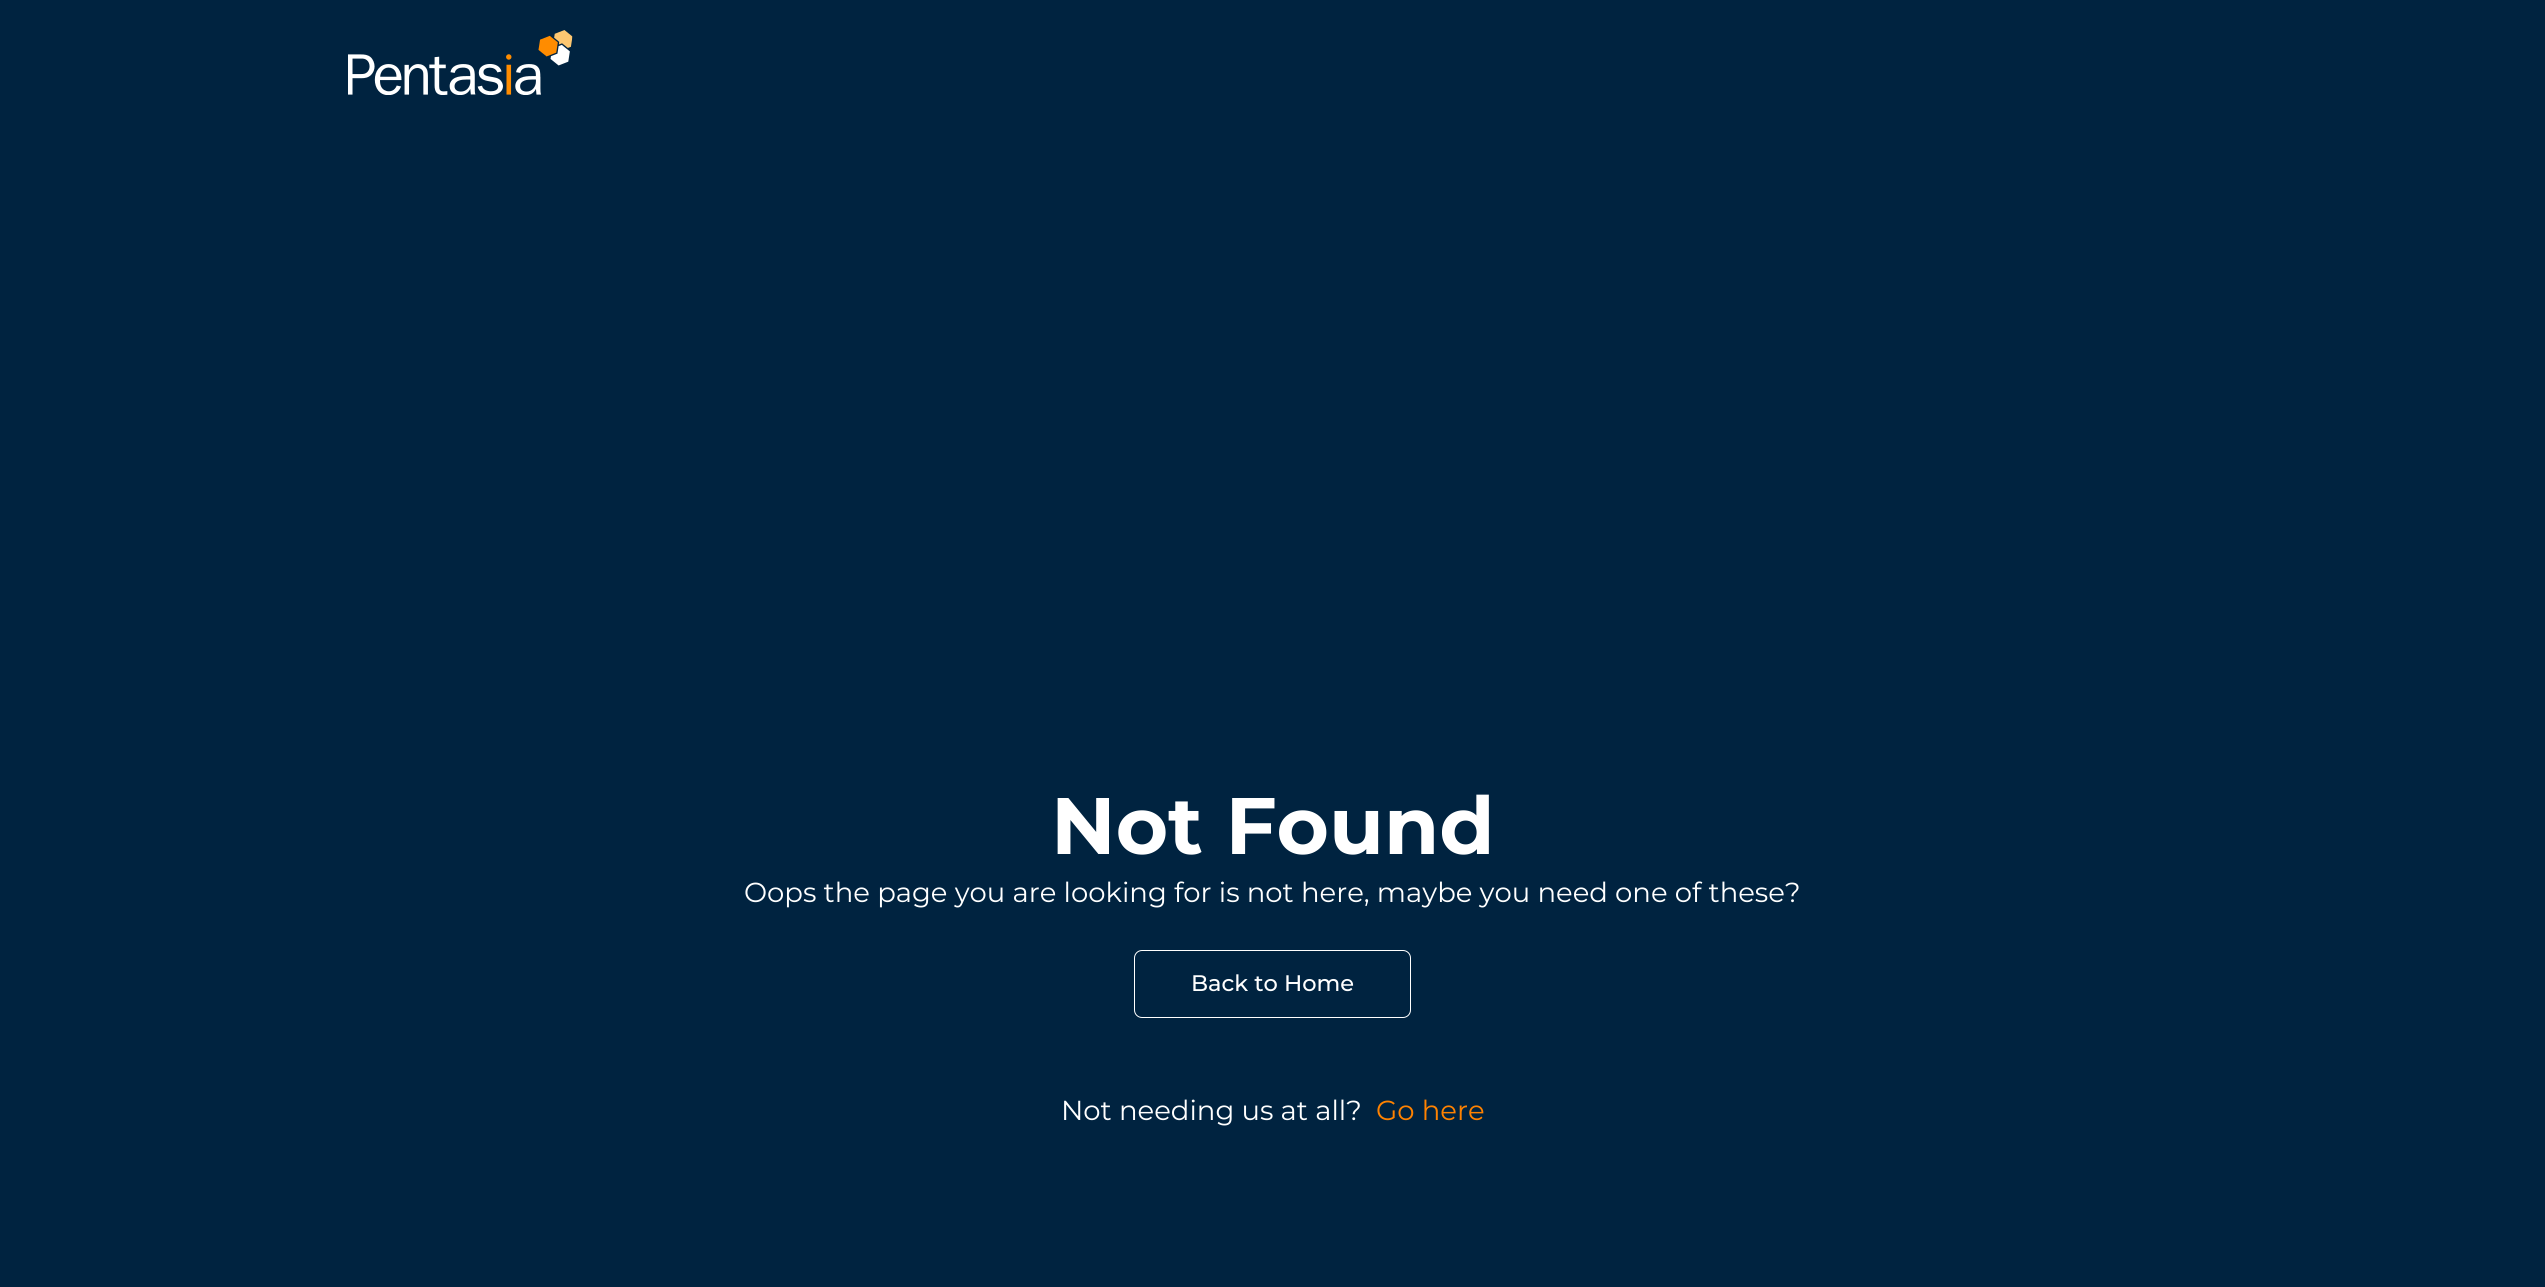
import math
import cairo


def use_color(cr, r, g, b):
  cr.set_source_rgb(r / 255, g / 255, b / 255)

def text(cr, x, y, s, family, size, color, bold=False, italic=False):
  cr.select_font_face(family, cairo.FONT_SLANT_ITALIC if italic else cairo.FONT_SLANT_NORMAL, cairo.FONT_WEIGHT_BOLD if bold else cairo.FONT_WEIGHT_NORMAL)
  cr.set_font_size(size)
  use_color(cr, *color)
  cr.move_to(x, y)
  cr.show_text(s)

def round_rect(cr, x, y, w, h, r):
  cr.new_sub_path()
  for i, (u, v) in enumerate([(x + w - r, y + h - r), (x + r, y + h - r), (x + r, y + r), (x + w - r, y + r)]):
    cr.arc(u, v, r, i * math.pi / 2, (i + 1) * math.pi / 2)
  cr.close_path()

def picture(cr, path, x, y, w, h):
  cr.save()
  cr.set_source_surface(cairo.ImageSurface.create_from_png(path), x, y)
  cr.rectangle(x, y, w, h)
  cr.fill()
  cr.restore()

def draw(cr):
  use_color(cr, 0, 35, 64)
  cr.paint()
  picture(cr, "img_01.png", 348, 30, 225, 65)
  round_rect(cr, 1134.5, 950.5, 276, 67, 7.5)
  use_color(cr, 255, 255, 255)
  cr.set_line_width(1)
  cr.stroke()
  text(cr, 1051, 854, "Not Found", "Montserrat", 80, (255, 255, 255), bold=True)
  text(cr, 744, 902, "Oops the page you are looking for is not here, maybe you need one of these?", "Montserrat", 27.5, (255, 255, 255))
  text(cr, 1191, 991, "Back to Home", "Montserrat Medium", 22.5, (255, 255, 255))
  text(cr, 1061, 1120, "Not needing us at all?", "Montserrat", 27.5, (255, 255, 255))
  text(cr, 1376, 1120, "Go here", "Montserrat", 27.5, (255, 130, 0))


surface = cairo.ImageSurface(cairo.FORMAT_RGB24, 2545, 1287)
cr = cairo.Context(surface)
options = cairo.FontOptions()
options.set_hint_metrics(cairo.HINT_METRICS_OFF)
options.set_hint_style(cairo.HINT_STYLE_NONE)
cr.set_font_options(options)
cr.set_miter_limit(4)
draw(cr)
surface.write_to_png("out.png")
